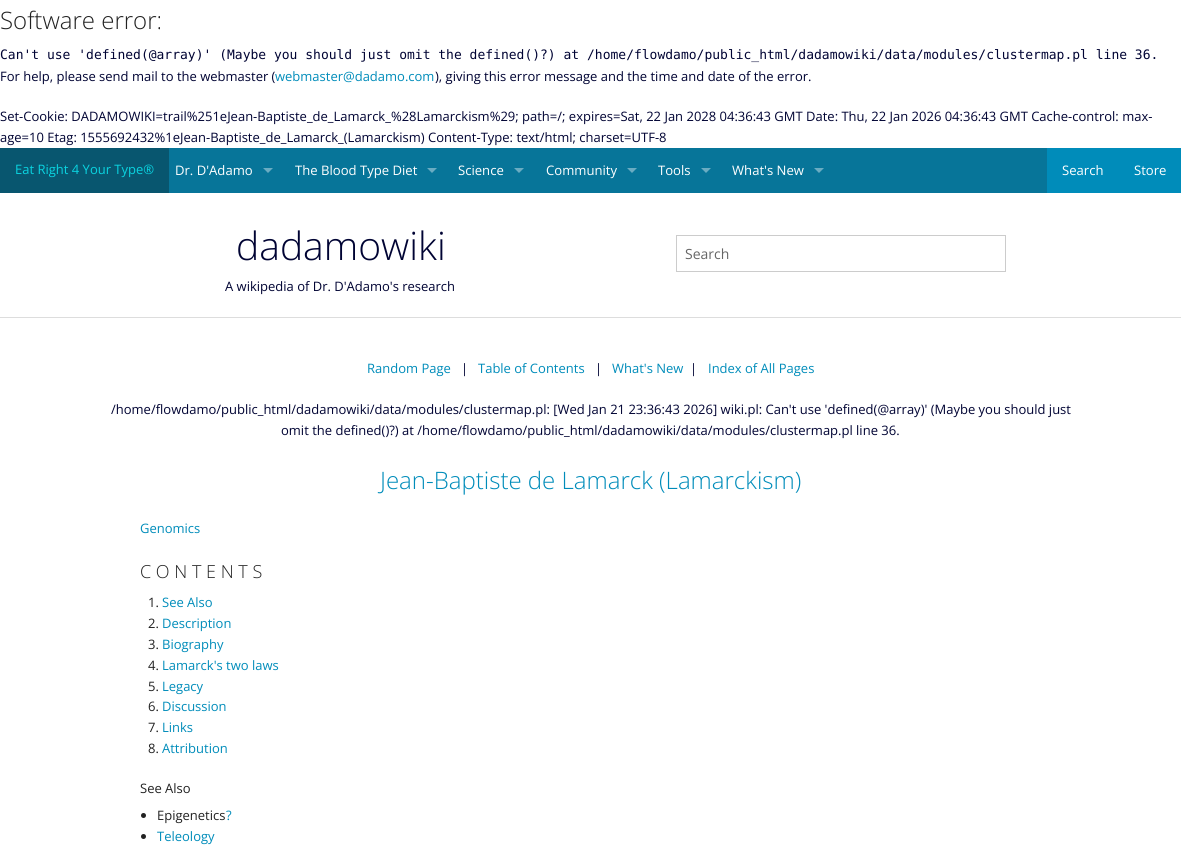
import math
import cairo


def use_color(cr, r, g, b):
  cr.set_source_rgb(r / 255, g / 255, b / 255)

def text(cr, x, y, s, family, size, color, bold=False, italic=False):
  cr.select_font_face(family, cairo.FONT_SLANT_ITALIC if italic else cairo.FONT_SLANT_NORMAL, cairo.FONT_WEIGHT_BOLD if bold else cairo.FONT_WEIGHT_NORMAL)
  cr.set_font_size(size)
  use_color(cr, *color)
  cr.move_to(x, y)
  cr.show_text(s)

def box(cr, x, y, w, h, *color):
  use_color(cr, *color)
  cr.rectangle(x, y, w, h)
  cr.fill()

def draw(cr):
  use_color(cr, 255, 255, 255)
  cr.paint()
  box(cr, 839, 148, 208, 45, 7, 117, 153)
  box(cr, 0, 148, 169, 45, 8, 86, 111)
  box(cr, 169, 148, 670, 45, 7, 117, 153)
  use_color(cr, 106, 172, 194)
  cr.new_path()
  cr.move_to(263, 168)
  cr.line_to(273, 168)
  cr.line_to(268, 173)
  cr.close_path()
  cr.fill()
  cr.new_path()
  cr.move_to(427, 168)
  cr.line_to(437, 168)
  cr.line_to(432, 173)
  cr.close_path()
  cr.fill()
  cr.new_path()
  cr.move_to(514, 168)
  cr.line_to(524, 168)
  cr.line_to(519, 173)
  cr.close_path()
  cr.fill()
  cr.new_path()
  cr.move_to(627, 168)
  cr.line_to(637, 168)
  cr.line_to(632, 173)
  cr.close_path()
  cr.fill()
  cr.new_path()
  cr.move_to(701, 168)
  cr.line_to(711, 168)
  cr.line_to(706, 173)
  cr.close_path()
  cr.fill()
  cr.new_path()
  cr.move_to(814, 168)
  cr.line_to(824, 168)
  cr.line_to(819, 173)
  cr.close_path()
  cr.fill()
  box(cr, 1047, 148, 134, 45, 0, 140, 186)
  cr.rectangle(676.5, 235.5, 329, 36)
  use_color(cr, 204, 204, 204)
  cr.set_line_width(1)
  cr.stroke()
  box(cr, 0, 317, 1181, 1, 221, 221, 221)
  use_color(cr, 34, 34, 34)
  cr.arc(143.5, 815.5, 2.5, 0, 2 * math.pi)
  cr.fill()
  cr.arc(143.5, 836.5, 2.5, 0, 2 * math.pi)
  cr.fill()
  text(cr, 0, 29, "Software error:", "Open Sans Light", 24, (34, 34, 34))
  text(cr, 0, 59, "Can't use 'defined(@array)' (Maybe you should just omit the defined()?) at /home/flowdamo/public_html/dadamowiki/data/modules/clustermap.pl line 36.", "DejaVu Sans Mono", 13, (0, 3, 51))
  text(cr, 0, 81, "For help, please send mail to the webmaster (", "Open Sans", 13, (0, 3, 51))
  text(cr, 275, 81, "webmaster@dadamo.com", "Open Sans", 13, (0, 140, 186))
  text(cr, 435, 81, "), giving this error message and the time and date of the error.", "Open Sans", 13, (0, 3, 51))
  text(cr, 0, 121, "Set-Cookie: DADAMOWIKI=trail%251eJean-Baptiste_de_Lamarck_%28Lamarckism%29; path=/; expires=Sat, 22 Jan 2028 04:36:43 GMT Date: Thu, 22 Jan 2026 04:36:43 GMT Cache-control: max-", "Open Sans", 13, (0, 3, 51))
  text(cr, 0, 142, "age=10 Etag: 1555692432%1eJean-Baptiste_de_Lamarck_(Lamarckism) Content-Type: text/html; charset=UTF-8", "Open Sans", 13, (0, 3, 51))
  text(cr, 15, 174, "Eat Right 4 Your Type®", "Open Sans", 13, (10, 211, 224))
  text(cr, 175, 175, "Dr. D'Adamo", "Open Sans", 13.1, (255, 255, 255))
  text(cr, 295, 175, "The Blood Type Diet", "Open Sans", 13.1, (255, 255, 255))
  text(cr, 458, 175, "Science", "Open Sans", 13.1, (255, 255, 255))
  text(cr, 546, 175, "Community", "Open Sans", 13.1, (255, 255, 255))
  text(cr, 658, 175, "Tools", "Open Sans", 13.1, (255, 255, 255))
  text(cr, 732, 175, "What's New", "Open Sans", 13.1, (255, 255, 255))
  text(cr, 1062, 175, "Search", "Open Sans", 13.1, (255, 255, 255))
  text(cr, 1134, 175, "Store", "Open Sans", 13.1, (255, 255, 255))
  text(cr, 236, 260, "dadamowiki", "Open Sans Light", 39, (0, 3, 51))
  text(cr, 225, 291, "A wikipedia of Dr. D'Adamo's research", "Open Sans", 13, (0, 3, 51))
  text(cr, 685, 259, "Search", "Open Sans", 14, (102, 102, 102))
  text(cr, 367, 373, "Random Page", "Open Sans", 13, (0, 140, 186))
  text(cr, 461, 373, "|", "Open Sans", 13, (0, 3, 51))
  text(cr, 478, 373, "Table of Contents", "Open Sans", 13, (0, 140, 186))
  text(cr, 595, 373, "|", "Open Sans", 13, (0, 3, 51))
  text(cr, 612, 373, "What's New", "Open Sans", 13, (0, 140, 186))
  text(cr, 690, 373, "|", "Open Sans", 13, (0, 3, 51))
  text(cr, 708, 373, "Index of All Pages", "Open Sans", 13, (0, 140, 186))
  text(cr, 111, 414, "/home/flowdamo/public_html/dadamowiki/data/modules/clustermap.pl: [Wed Jan 21 23:36:43 2026] wiki.pl: Can't use 'defined(@array)' (Maybe you should just", "Open Sans", 13, (0, 3, 51))
  text(cr, 281, 435, "omit the defined()?) at /home/flowdamo/public_html/dadamowiki/data/modules/clustermap.pl line 36.", "Open Sans", 13, (0, 3, 51))
  text(cr, 380, 489, "Jean-Baptiste de Lamarck (Lamarckism)", "Open Sans Light", 24, (0, 140, 186))
  text(cr, 140, 533, "Genomics", "Open Sans", 13, (0, 140, 186))
  text(cr, 140, 578, "C O N T E N T S", "Open Sans Light", 18, (34, 34, 34))
  text(cr, 148, 607, "1.", "Open Sans", 13, (34, 34, 34))
  text(cr, 162, 607, "See Also", "Open Sans", 13, (0, 140, 186))
  text(cr, 148, 628, "2.", "Open Sans", 13, (34, 34, 34))
  text(cr, 162, 628, "Description", "Open Sans", 13, (0, 140, 186))
  text(cr, 148, 649, "3.", "Open Sans", 13, (34, 34, 34))
  text(cr, 162, 649, "Biography", "Open Sans", 13, (0, 140, 186))
  text(cr, 148, 670, "4.", "Open Sans", 13, (34, 34, 34))
  text(cr, 162, 670, "Lamarck's two laws", "Open Sans", 13, (0, 140, 186))
  text(cr, 148, 691, "5.", "Open Sans", 13, (34, 34, 34))
  text(cr, 162, 691, "Legacy", "Open Sans", 13, (0, 140, 186))
  text(cr, 148, 711, "6.", "Open Sans", 13, (34, 34, 34))
  text(cr, 162, 711, "Discussion", "Open Sans", 13, (0, 140, 186))
  text(cr, 148, 732, "7.", "Open Sans", 13, (34, 34, 34))
  text(cr, 162, 732, "Links", "Open Sans", 13, (0, 140, 186))
  text(cr, 148, 753, "8.", "Open Sans", 13, (34, 34, 34))
  text(cr, 162, 753, "Attribution", "Open Sans", 13, (0, 140, 186))
  text(cr, 140, 793, "See Also", "Open Sans", 13, (34, 34, 34))
  text(cr, 157, 820, "Epigenetics", "Open Sans", 13, (34, 34, 34))
  text(cr, 226, 820, "?", "Open Sans", 13, (0, 140, 186))
  text(cr, 157, 841, "Teleology", "Open Sans", 13, (0, 140, 186))


surface = cairo.ImageSurface(cairo.FORMAT_RGB24, 1181, 868)
cr = cairo.Context(surface)
options = cairo.FontOptions()
options.set_hint_metrics(cairo.HINT_METRICS_OFF)
options.set_hint_style(cairo.HINT_STYLE_NONE)
cr.set_font_options(options)
cr.set_miter_limit(4)
draw(cr)
surface.write_to_png("out.png")
